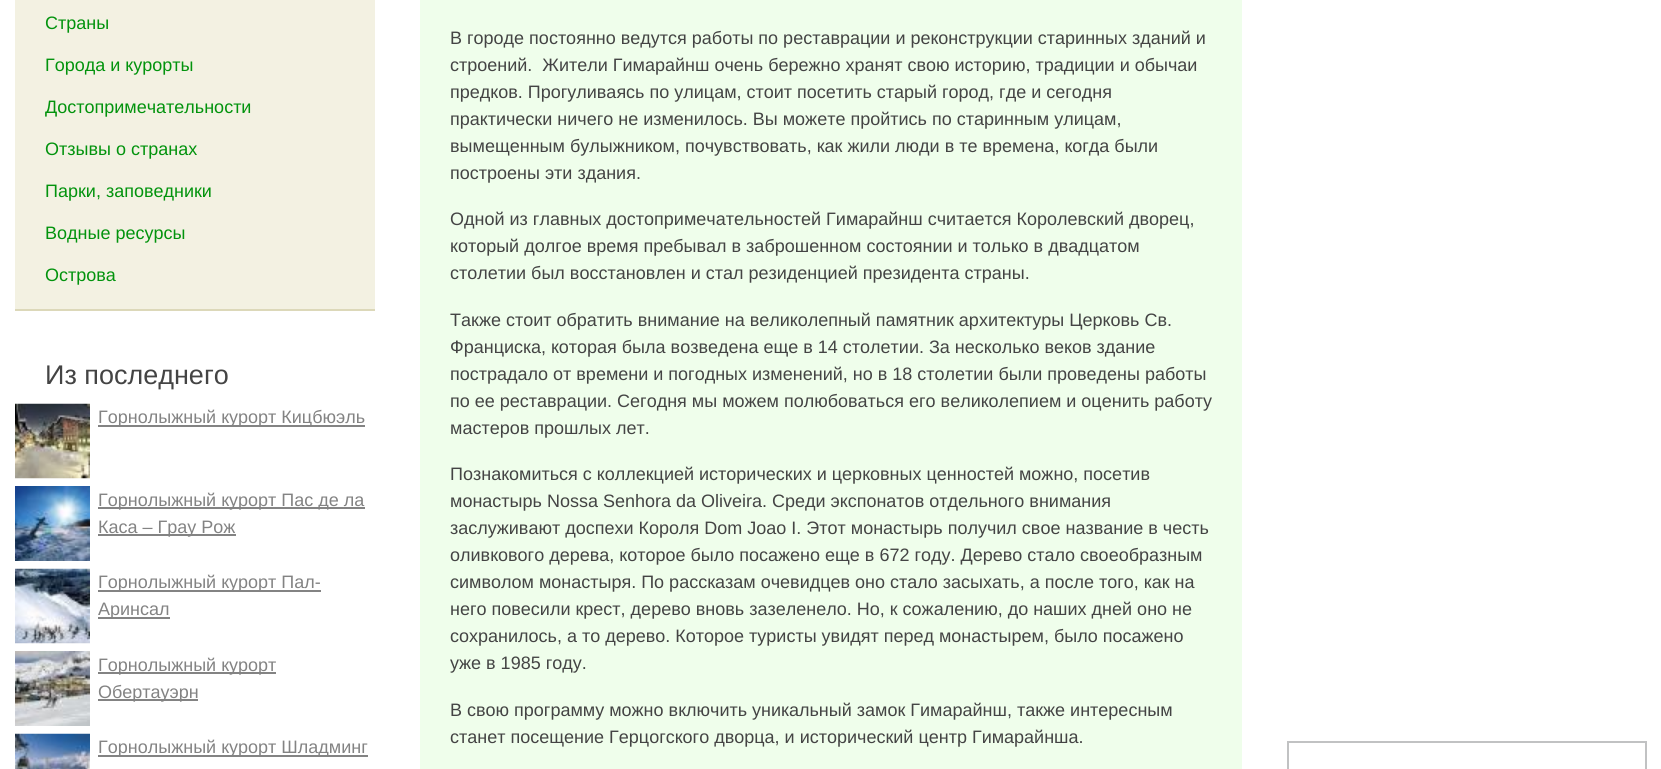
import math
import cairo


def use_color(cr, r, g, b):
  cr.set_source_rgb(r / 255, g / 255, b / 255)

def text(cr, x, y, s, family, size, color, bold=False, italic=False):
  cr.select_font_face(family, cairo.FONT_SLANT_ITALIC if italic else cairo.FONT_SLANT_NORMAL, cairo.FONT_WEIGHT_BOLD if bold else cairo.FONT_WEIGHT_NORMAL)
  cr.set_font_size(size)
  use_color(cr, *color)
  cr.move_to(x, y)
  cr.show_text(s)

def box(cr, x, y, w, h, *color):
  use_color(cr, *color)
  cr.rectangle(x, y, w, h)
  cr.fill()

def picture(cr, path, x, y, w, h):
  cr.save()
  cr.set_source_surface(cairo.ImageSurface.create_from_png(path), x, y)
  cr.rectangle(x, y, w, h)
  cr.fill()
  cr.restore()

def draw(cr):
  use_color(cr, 255, 255, 255)
  cr.paint()
  box(cr, 15, 0, 360, 309, 243, 241, 226)
  box(cr, 15, 309, 360, 2, 220, 216, 185)
  picture(cr, "img_01.png", 15, 403, 75, 76)
  box(cr, 98, 425, 267, 2, 131, 131, 131)
  picture(cr, "img_02.png", 15, 486, 75, 75)
  box(cr, 98, 507, 267, 2, 131, 131, 131)
  box(cr, 98, 534, 138, 2, 131, 131, 131)
  picture(cr, "img_03.png", 15, 568, 75, 76)
  box(cr, 98, 590, 223, 2, 131, 131, 131)
  box(cr, 98, 617, 72, 2, 131, 131, 131)
  picture(cr, "img_04.png", 15, 651, 75, 75)
  box(cr, 98, 672, 178, 2, 131, 131, 131)
  box(cr, 98, 699, 100, 2, 131, 131, 131)
  picture(cr, "img_05.png", 15, 733, 75, 36)
  box(cr, 98, 755, 270, 2, 131, 131, 131)
  box(cr, 420, 0, 822, 769, 239, 254, 235)
  cr.rectangle(1288, 742, 358, 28)
  use_color(cr, 193, 194, 195)
  cr.stroke()
  text(cr, 45, 29, "Страны", "Liberation Sans", 18, (2, 147, 13))
  text(cr, 45, 71, "Города и курорты", "Liberation Sans", 18, (2, 147, 13))
  text(cr, 45, 113, "Достопримечательности", "Liberation Sans", 18, (2, 147, 13))
  text(cr, 45, 155, "Отзывы о странах", "Liberation Sans", 18, (2, 147, 13))
  text(cr, 45, 197, "Парки, заповедники", "Liberation Sans", 18, (2, 147, 13))
  text(cr, 45, 239, "Водные ресурсы", "Liberation Sans", 18, (2, 147, 13))
  text(cr, 45, 281, "Острова", "Liberation Sans", 18, (2, 147, 13))
  text(cr, 45, 384, "Из последнего", "Liberation Sans", 27, (68, 68, 68))
  text(cr, 98, 423, "Горнолыжный курорт Кицбюэль", "Liberation Sans", 18, (131, 131, 131))
  text(cr, 98, 506, "Горнолыжный курорт Пас де ла", "Liberation Sans", 18, (131, 131, 131))
  text(cr, 98, 533, "Каса – Грау Рож", "Liberation Sans", 18, (131, 131, 131))
  text(cr, 98, 588, "Горнолыжный курорт Пал-", "Liberation Sans", 18, (131, 131, 131))
  text(cr, 98, 615, "Аринсал", "Liberation Sans", 18, (131, 131, 131))
  text(cr, 98, 671, "Горнолыжный курорт", "Liberation Sans", 18, (131, 131, 131))
  text(cr, 98, 698, "Обертауэрн", "Liberation Sans", 18, (131, 131, 131))
  text(cr, 98, 753, "Горнолыжный курорт Шладминг", "Liberation Sans", 18, (131, 131, 131))
  text(cr, 450, 44, "В городе постоянно ведутся работы по реставрации и реконструкции старинных зданий и", "Liberation Sans", 18, (68, 68, 68))
  text(cr, 450, 71, "строений.  Жители Гимарайнш очень бережно хранят свою историю, традиции и обычаи", "Liberation Sans", 18, (68, 68, 68))
  text(cr, 450, 98, "предков. Прогуливаясь по улицам, стоит посетить старый город, где и сегодня", "Liberation Sans", 18, (68, 68, 68))
  text(cr, 450, 125, "практически ничего не изменилось. Вы можете пройтись по старинным улицам,", "Liberation Sans", 18, (68, 68, 68))
  text(cr, 450, 152, "вымещенным булыжником, почувствовать, как жили люди в те времена, когда были", "Liberation Sans", 18, (68, 68, 68))
  text(cr, 450, 179, "построены эти здания.", "Liberation Sans", 18, (68, 68, 68))
  text(cr, 450, 225, "Одной из главных достопримечательностей Гимарайнш считается Королевский дворец,", "Liberation Sans", 18, (68, 68, 68))
  text(cr, 450, 252, "который долгое время пребывал в заброшенном состоянии и только в двадцатом", "Liberation Sans", 18, (68, 68, 68))
  text(cr, 450, 279, "столетии был восстановлен и стал резиденцией президента страны.", "Liberation Sans", 18, (68, 68, 68))
  text(cr, 450, 326, "Также стоит обратить внимание на великолепный памятник архитектуры Церковь Св.", "Liberation Sans", 18, (68, 68, 68))
  text(cr, 450, 353, "Франциска, которая была возведена еще в 14 столетии. За несколько веков здание", "Liberation Sans", 18, (68, 68, 68))
  text(cr, 450, 380, "пострадало от времени и погодных изменений, но в 18 столетии были проведены работы", "Liberation Sans", 18, (68, 68, 68))
  text(cr, 450, 407, "по ее реставрации. Сегодня мы можем полюбоваться его великолепием и оценить работу", "Liberation Sans", 18, (68, 68, 68))
  text(cr, 450, 434, "мастеров прошлых лет.", "Liberation Sans", 18, (68, 68, 68))
  text(cr, 450, 480, "Познакомиться с коллекцией исторических и церковных ценностей можно, посетив", "Liberation Sans", 18, (68, 68, 68))
  text(cr, 450, 507, "монастырь Nossa Senhora da Oliveira. Среди экспонатов отдельного внимания", "Liberation Sans", 18, (68, 68, 68))
  text(cr, 450, 534, "заслуживают доспехи Короля Dom Joao I. Этот монастырь получил свое название в честь", "Liberation Sans", 18, (68, 68, 68))
  text(cr, 450, 561, "оливкового дерева, которое было посажено еще в 672 году. Дерево стало своеобразным", "Liberation Sans", 18, (68, 68, 68))
  text(cr, 450, 588, "символом монастыря. По рассказам очевидцев оно стало засыхать, а после того, как на", "Liberation Sans", 18, (68, 68, 68))
  text(cr, 450, 615, "него повесили крест, дерево вновь зазеленело. Но, к сожалению, до наших дней оно не", "Liberation Sans", 18, (68, 68, 68))
  text(cr, 450, 642, "сохранилось, а то дерево. Которое туристы увидят перед монастырем, было посажено", "Liberation Sans", 18, (68, 68, 68))
  text(cr, 450, 669, "уже в 1985 году.", "Liberation Sans", 18, (68, 68, 68))
  text(cr, 450, 716, "В свою программу можно включить уникальный замок Гимарайнш, также интересным", "Liberation Sans", 18, (68, 68, 68))
  text(cr, 450, 743, "станет посещение Герцогского дворца, и исторический центр Гимарайнша.", "Liberation Sans", 18, (68, 68, 68))


surface = cairo.ImageSurface(cairo.FORMAT_RGB24, 1661, 769)
cr = cairo.Context(surface)
options = cairo.FontOptions()
options.set_hint_metrics(cairo.HINT_METRICS_OFF)
options.set_hint_style(cairo.HINT_STYLE_NONE)
cr.set_font_options(options)
cr.set_miter_limit(4)
draw(cr)
surface.write_to_png("out.png")
